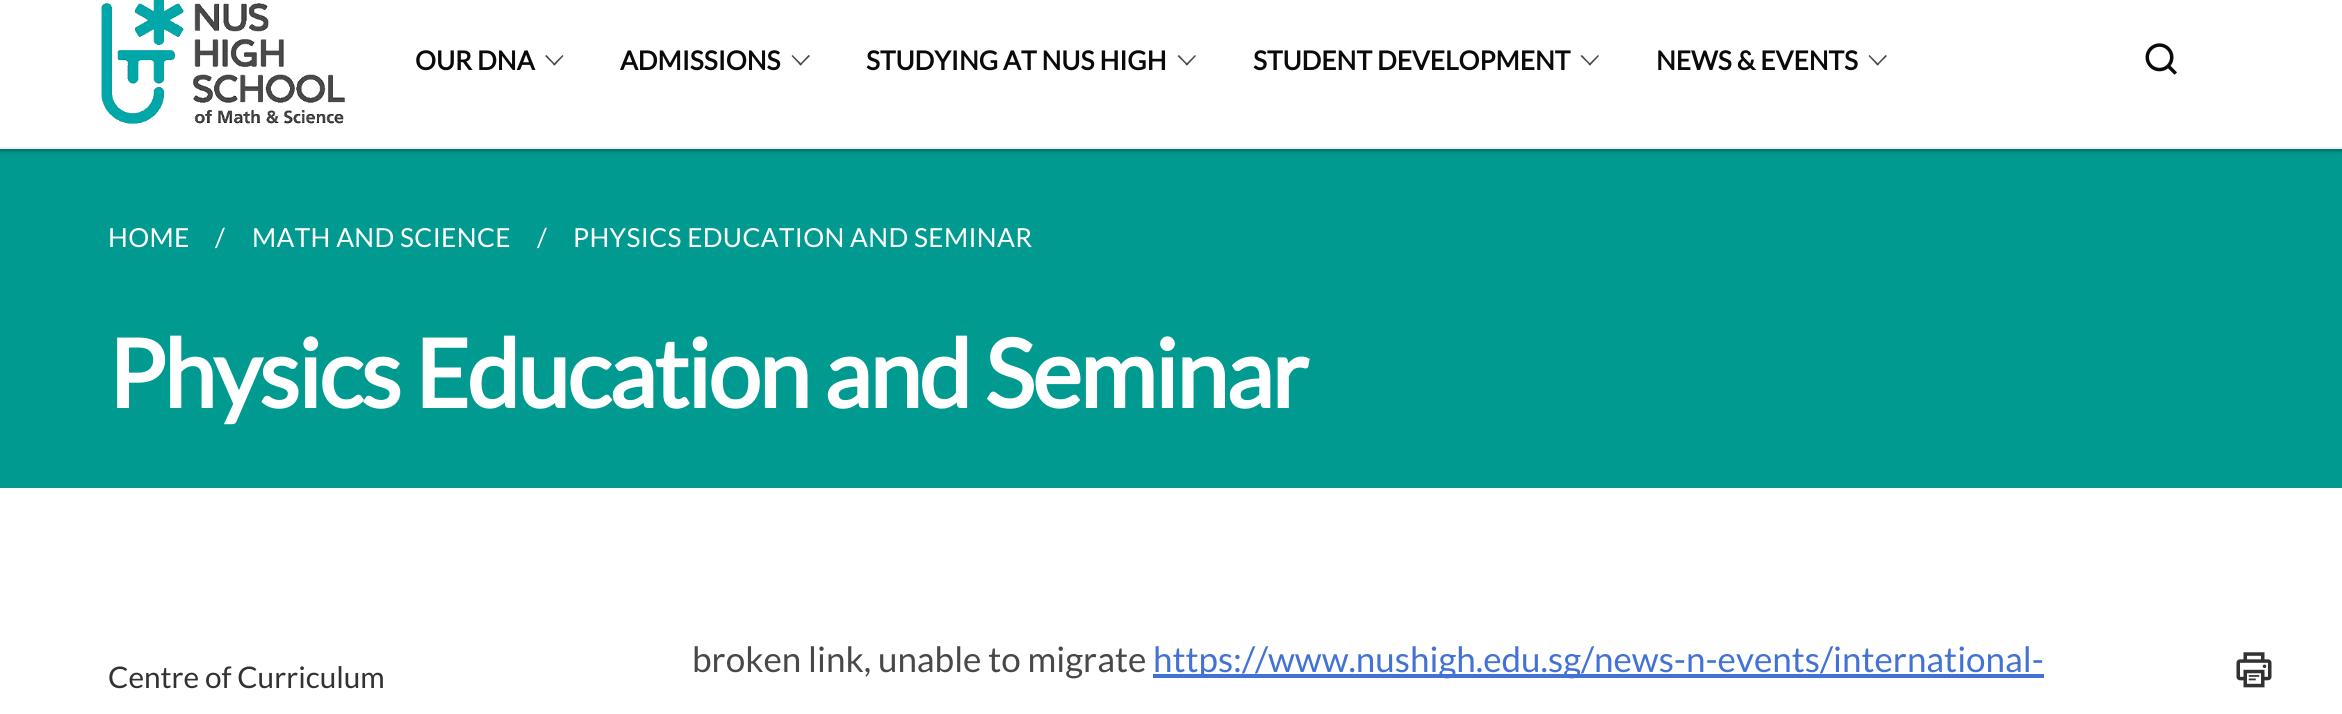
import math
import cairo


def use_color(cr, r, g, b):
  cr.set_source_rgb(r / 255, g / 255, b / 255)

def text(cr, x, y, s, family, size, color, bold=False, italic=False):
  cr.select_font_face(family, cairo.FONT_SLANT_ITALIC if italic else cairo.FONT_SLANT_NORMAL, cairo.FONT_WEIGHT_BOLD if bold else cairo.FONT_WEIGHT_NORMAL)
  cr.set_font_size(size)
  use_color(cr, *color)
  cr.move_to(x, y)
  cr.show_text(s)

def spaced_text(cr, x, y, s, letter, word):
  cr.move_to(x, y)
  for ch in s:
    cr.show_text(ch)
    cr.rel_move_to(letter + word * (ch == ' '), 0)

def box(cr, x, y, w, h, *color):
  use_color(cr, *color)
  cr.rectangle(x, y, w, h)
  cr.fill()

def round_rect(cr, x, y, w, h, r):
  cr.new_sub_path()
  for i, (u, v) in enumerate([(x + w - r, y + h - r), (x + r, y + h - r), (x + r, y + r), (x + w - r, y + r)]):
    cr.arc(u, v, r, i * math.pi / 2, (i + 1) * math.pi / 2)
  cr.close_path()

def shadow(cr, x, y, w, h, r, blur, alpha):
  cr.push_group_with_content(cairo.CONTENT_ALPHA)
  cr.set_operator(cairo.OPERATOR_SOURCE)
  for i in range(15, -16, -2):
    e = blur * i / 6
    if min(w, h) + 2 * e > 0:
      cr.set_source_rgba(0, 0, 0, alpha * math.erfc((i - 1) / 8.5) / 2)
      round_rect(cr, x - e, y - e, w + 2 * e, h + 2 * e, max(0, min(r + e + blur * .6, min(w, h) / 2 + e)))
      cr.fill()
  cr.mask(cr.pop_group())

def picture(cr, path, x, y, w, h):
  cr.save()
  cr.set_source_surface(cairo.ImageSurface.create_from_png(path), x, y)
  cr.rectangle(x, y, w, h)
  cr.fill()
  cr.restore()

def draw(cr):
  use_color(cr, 255, 255, 255)
  cr.paint()
  box(cr, 0, 149, 2342, 339, 0, 154, 144)
  use_color(cr, 0, 0, 0)
  shadow(cr, 0, -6, 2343, 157, 0, 2, 0.24)
  shadow(cr, 0, -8, 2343, 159, 0, 2.5, 0.12)
  box(cr, 0, 0, 2342, 147, 255, 255, 255)
  box(cr, 0, 147, 2342, 2, 240, 240, 240)
  picture(cr, "img_01.png", 101, 0, 244, 124)
  use_color(cr, 72, 72, 72)
  cr.new_path()
  cr.move_to(553, 64.5)
  cr.line_to(562.5, 55)
  cr.line_to(563.5, 56)
  cr.line_to(554.5, 65.5)
  cr.close_path()
  cr.fill()
  cr.new_path()
  cr.move_to(545, 56)
  cr.line_to(546.5, 55)
  cr.line_to(555.5, 64.5)
  cr.line_to(554.5, 65.5)
  cr.close_path()
  cr.fill()
  cr.new_path()
  cr.move_to(799.5, 64.5)
  cr.line_to(808.5, 55)
  cr.line_to(810, 56)
  cr.line_to(800.5, 65.5)
  cr.close_path()
  cr.fill()
  cr.new_path()
  cr.move_to(791.5, 56)
  cr.line_to(792.5, 55)
  cr.line_to(802, 64.5)
  cr.line_to(800.5, 65.5)
  cr.close_path()
  cr.fill()
  cr.new_path()
  cr.move_to(1185.5, 64.5)
  cr.line_to(1195, 55)
  cr.line_to(1196, 56)
  cr.line_to(1187, 65.5)
  cr.close_path()
  cr.fill()
  cr.new_path()
  cr.move_to(1177.5, 56)
  cr.line_to(1179, 55)
  cr.line_to(1188, 64.5)
  cr.line_to(1187, 65.5)
  cr.close_path()
  cr.fill()
  cr.new_path()
  cr.move_to(1588.5, 64.5)
  cr.line_to(1598, 55)
  cr.line_to(1599, 56)
  cr.line_to(1590, 65.5)
  cr.close_path()
  cr.fill()
  cr.new_path()
  cr.move_to(1580.5, 56)
  cr.line_to(1582, 55)
  cr.line_to(1591, 64.5)
  cr.line_to(1590, 65.5)
  cr.close_path()
  cr.fill()
  cr.new_path()
  cr.move_to(1876.5, 64.5)
  cr.line_to(1885.5, 55)
  cr.line_to(1887, 56)
  cr.line_to(1877.5, 65.5)
  cr.close_path()
  cr.fill()
  cr.new_path()
  cr.move_to(1868.5, 56)
  cr.line_to(1869.5, 55)
  cr.line_to(1879, 64.5)
  cr.line_to(1877.5, 65.5)
  cr.close_path()
  cr.fill()
  picture(cr, "img_02.png", 2145, 43, 32, 32)
  box(cr, 1153, 674, 891, 4, 67, 114, 214)
  picture(cr, "img_03.png", 2236, 652, 36, 36)
  text(cr, 415, 70, "OUR DNA", "Lato", 26.25, (10, 10, 10), bold=True)
  text(cr, 620, 70, "ADMISSIONS", "Lato", 26.25, (10, 10, 10), bold=True)
  text(cr, 866, 70, "STUDYING AT NUS HIGH", "Lato", 26.25, (10, 10, 10), bold=True)
  text(cr, 1253, 70, "STUDENT DEVELOPMENT", "Lato", 26.25, (10, 10, 10), bold=True)
  text(cr, 1656, 70, "NEWS & EVENTS", "Lato", 26.25, (10, 10, 10), bold=True)
  cr.select_font_face("Lato")
  use_color(cr, 255, 255, 255)
  spaced_text(cr, 108, 247, "HOME", 0.35, 0)
  text(cr, 215, 247, "/", "Lato", 26.25, (255, 255, 255))
  spaced_text(cr, 252, 247, "MATH AND SCIENCE", 0.35, 0)
  text(cr, 537, 247, "/", "Lato", 26.25, (255, 255, 255))
  spaced_text(cr, 573, 247, "PHYSICS EDUCATION AND SEMINAR", 0.35, 0)
  cr.select_font_face("Lato", cairo.FONT_SLANT_NORMAL, cairo.FONT_WEIGHT_BOLD)
  cr.set_font_size(94.5)
  spaced_text(cr, 108, 408, "Physics Education and Seminar", -2.6, 0)
  text(cr, 108, 688, "Centre of Curriculum", "Lato", 29.75, (50, 50, 50))
  text(cr, 692, 672, "broken link, unable to migrate", "Lato", 35, (72, 72, 72))
  text(cr, 1153, 672, "https://www.nushigh.edu.sg/news-n-events/international-", "Lato", 35, (67, 114, 214))


surface = cairo.ImageSurface(cairo.FORMAT_RGB24, 2342, 714)
cr = cairo.Context(surface)
options = cairo.FontOptions()
options.set_hint_metrics(cairo.HINT_METRICS_OFF)
options.set_hint_style(cairo.HINT_STYLE_NONE)
cr.set_font_options(options)
cr.set_miter_limit(4)
draw(cr)
surface.write_to_png("out.png")
